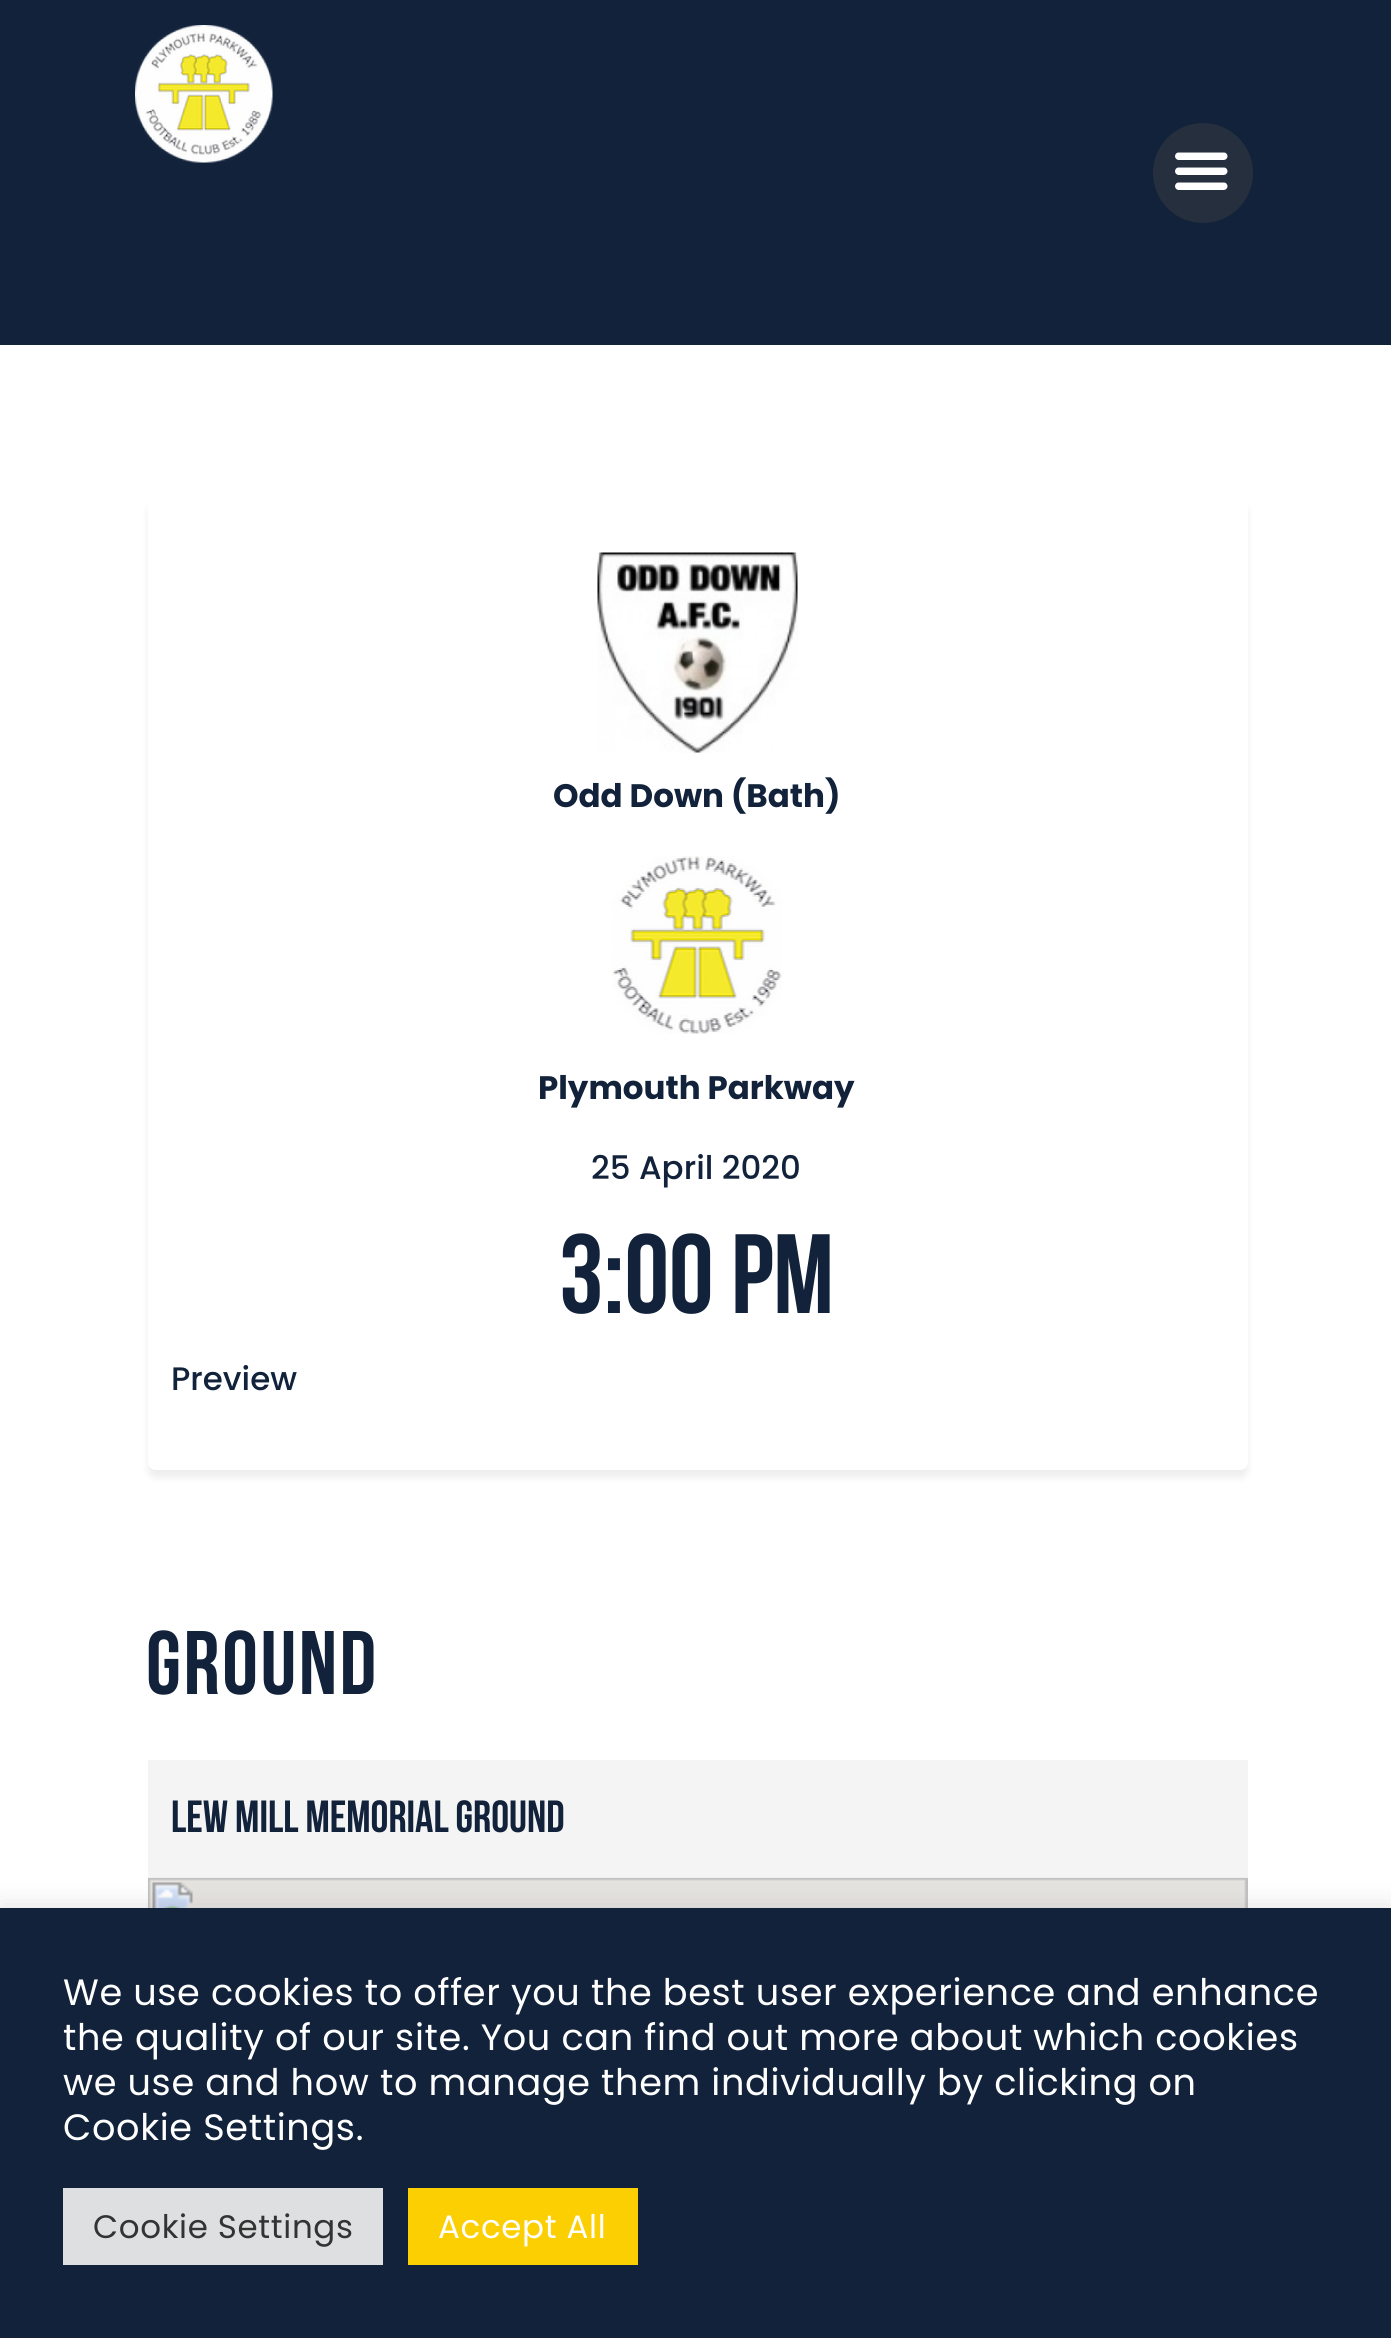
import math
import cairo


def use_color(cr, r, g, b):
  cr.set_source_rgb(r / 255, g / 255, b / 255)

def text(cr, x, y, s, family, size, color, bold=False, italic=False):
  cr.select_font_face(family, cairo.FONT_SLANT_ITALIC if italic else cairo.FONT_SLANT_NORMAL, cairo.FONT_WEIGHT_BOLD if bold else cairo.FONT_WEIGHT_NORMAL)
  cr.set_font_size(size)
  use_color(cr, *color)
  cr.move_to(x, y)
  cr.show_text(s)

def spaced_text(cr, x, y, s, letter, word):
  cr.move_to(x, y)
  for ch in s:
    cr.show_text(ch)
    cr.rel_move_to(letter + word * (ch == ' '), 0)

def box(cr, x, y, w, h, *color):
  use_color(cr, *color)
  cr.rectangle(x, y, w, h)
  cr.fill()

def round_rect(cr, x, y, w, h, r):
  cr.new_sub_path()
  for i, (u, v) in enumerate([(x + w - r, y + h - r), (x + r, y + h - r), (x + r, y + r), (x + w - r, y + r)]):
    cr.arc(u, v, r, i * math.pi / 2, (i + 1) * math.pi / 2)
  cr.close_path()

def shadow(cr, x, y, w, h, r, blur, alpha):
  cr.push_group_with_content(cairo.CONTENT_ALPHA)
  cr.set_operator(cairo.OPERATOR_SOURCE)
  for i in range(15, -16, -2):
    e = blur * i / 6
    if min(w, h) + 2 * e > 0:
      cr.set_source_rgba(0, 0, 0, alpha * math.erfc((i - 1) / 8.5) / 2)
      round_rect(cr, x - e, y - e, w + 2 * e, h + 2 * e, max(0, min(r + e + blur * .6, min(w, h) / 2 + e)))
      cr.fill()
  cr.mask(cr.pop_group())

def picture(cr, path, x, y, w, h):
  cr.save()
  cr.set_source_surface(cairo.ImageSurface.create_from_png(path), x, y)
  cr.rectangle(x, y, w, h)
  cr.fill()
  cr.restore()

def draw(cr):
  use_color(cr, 255, 255, 255)
  cr.paint()
  box(cr, 0, 0, 1391, 345, 17, 34, 58)
  picture(cr, "img_01.png", 135, 25, 138, 138)
  use_color(cr, 38, 47, 62)
  cr.arc(1203, 173, 50, 0, 2 * math.pi)
  cr.fill()
  picture(cr, "img_02.png", 1175, 152, 53, 38)
  use_color(cr, 0, 0, 0)
  shadow(cr, 148, 505, 1100, 973, 8, 4, 0.07)
  use_color(cr, 255, 255, 255)
  round_rect(cr, 148, 498, 1100, 972, 8)
  cr.fill()
  picture(cr, "img_03.png", 597, 552, 201, 201)
  picture(cr, "img_04.png", 612, 856, 170, 178)
  box(cr, 148, 1760, 1100, 118, 244, 244, 244)
  picture(cr, "img_05.png", 147, 1877, 1101, 31)
  use_color(cr, 172, 171, 171)
  shadow(cr, 0, 1905, 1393, 433, 0, 12.5, 0.3)
  box(cr, 0, 1908, 1391, 430, 17, 34, 58)
  box(cr, 63, 2188, 320, 77, 222, 223, 224)
  box(cr, 408, 2188, 230, 77, 252, 207, 2)
  text(cr, 553, 807, "Odd Down (Bath)", "Poppins", 32.5, (17, 34, 58), bold=True)
  text(cr, 538, 1099, "Plymouth Parkway", "Poppins", 32.5, (17, 34, 58), bold=True)
  text(cr, 591, 1179, "25 April 2020", "Poppins Medium", 32.5, (17, 34, 58))
  text(cr, 559, 1313, "3:00 pm", "Bebas Neue", 112.5, (17, 34, 58), bold=True)
  text(cr, 171, 1390, "Preview", "Poppins Medium", 32.5, (17, 34, 58))
  cr.select_font_face("Bebas Neue", cairo.FONT_SLANT_NORMAL, cairo.FONT_WEIGHT_BOLD)
  cr.set_font_size(90)
  spaced_text(cr, 146, 1694, "Ground", 2.5, 0)
  text(cr, 171, 1832, "Lew Mill Memorial Ground", "Bebas Neue", 45, (17, 34, 58), bold=True)
  cr.select_font_face("Poppins")
  cr.set_font_size(36.65)
  use_color(cr, 255, 255, 255)
  spaced_text(cr, 63, 2005, "We use cookies to offer you the best user experience and enhance", 0.65, 0)
  spaced_text(cr, 63, 2050, "the quality of our site. You can find out more about which cookies", 0.65, 0)
  spaced_text(cr, 63, 2095, "we use and how to manage them individually by clicking on", 0.65, 0)
  spaced_text(cr, 63, 2140, "Cookie Settings.", 0.65, 0)
  cr.set_font_size(32.5)
  use_color(cr, 51, 51, 51)
  spaced_text(cr, 93, 2238, "Cookie Settings", 0.65, 0)
  use_color(cr, 255, 255, 255)
  spaced_text(cr, 438, 2238, "Accept All", 0.65, 0)


surface = cairo.ImageSurface(cairo.FORMAT_RGB24, 1391, 2338)
cr = cairo.Context(surface)
options = cairo.FontOptions()
options.set_hint_metrics(cairo.HINT_METRICS_OFF)
options.set_hint_style(cairo.HINT_STYLE_NONE)
cr.set_font_options(options)
cr.set_miter_limit(4)
draw(cr)
surface.write_to_png("out.png")
